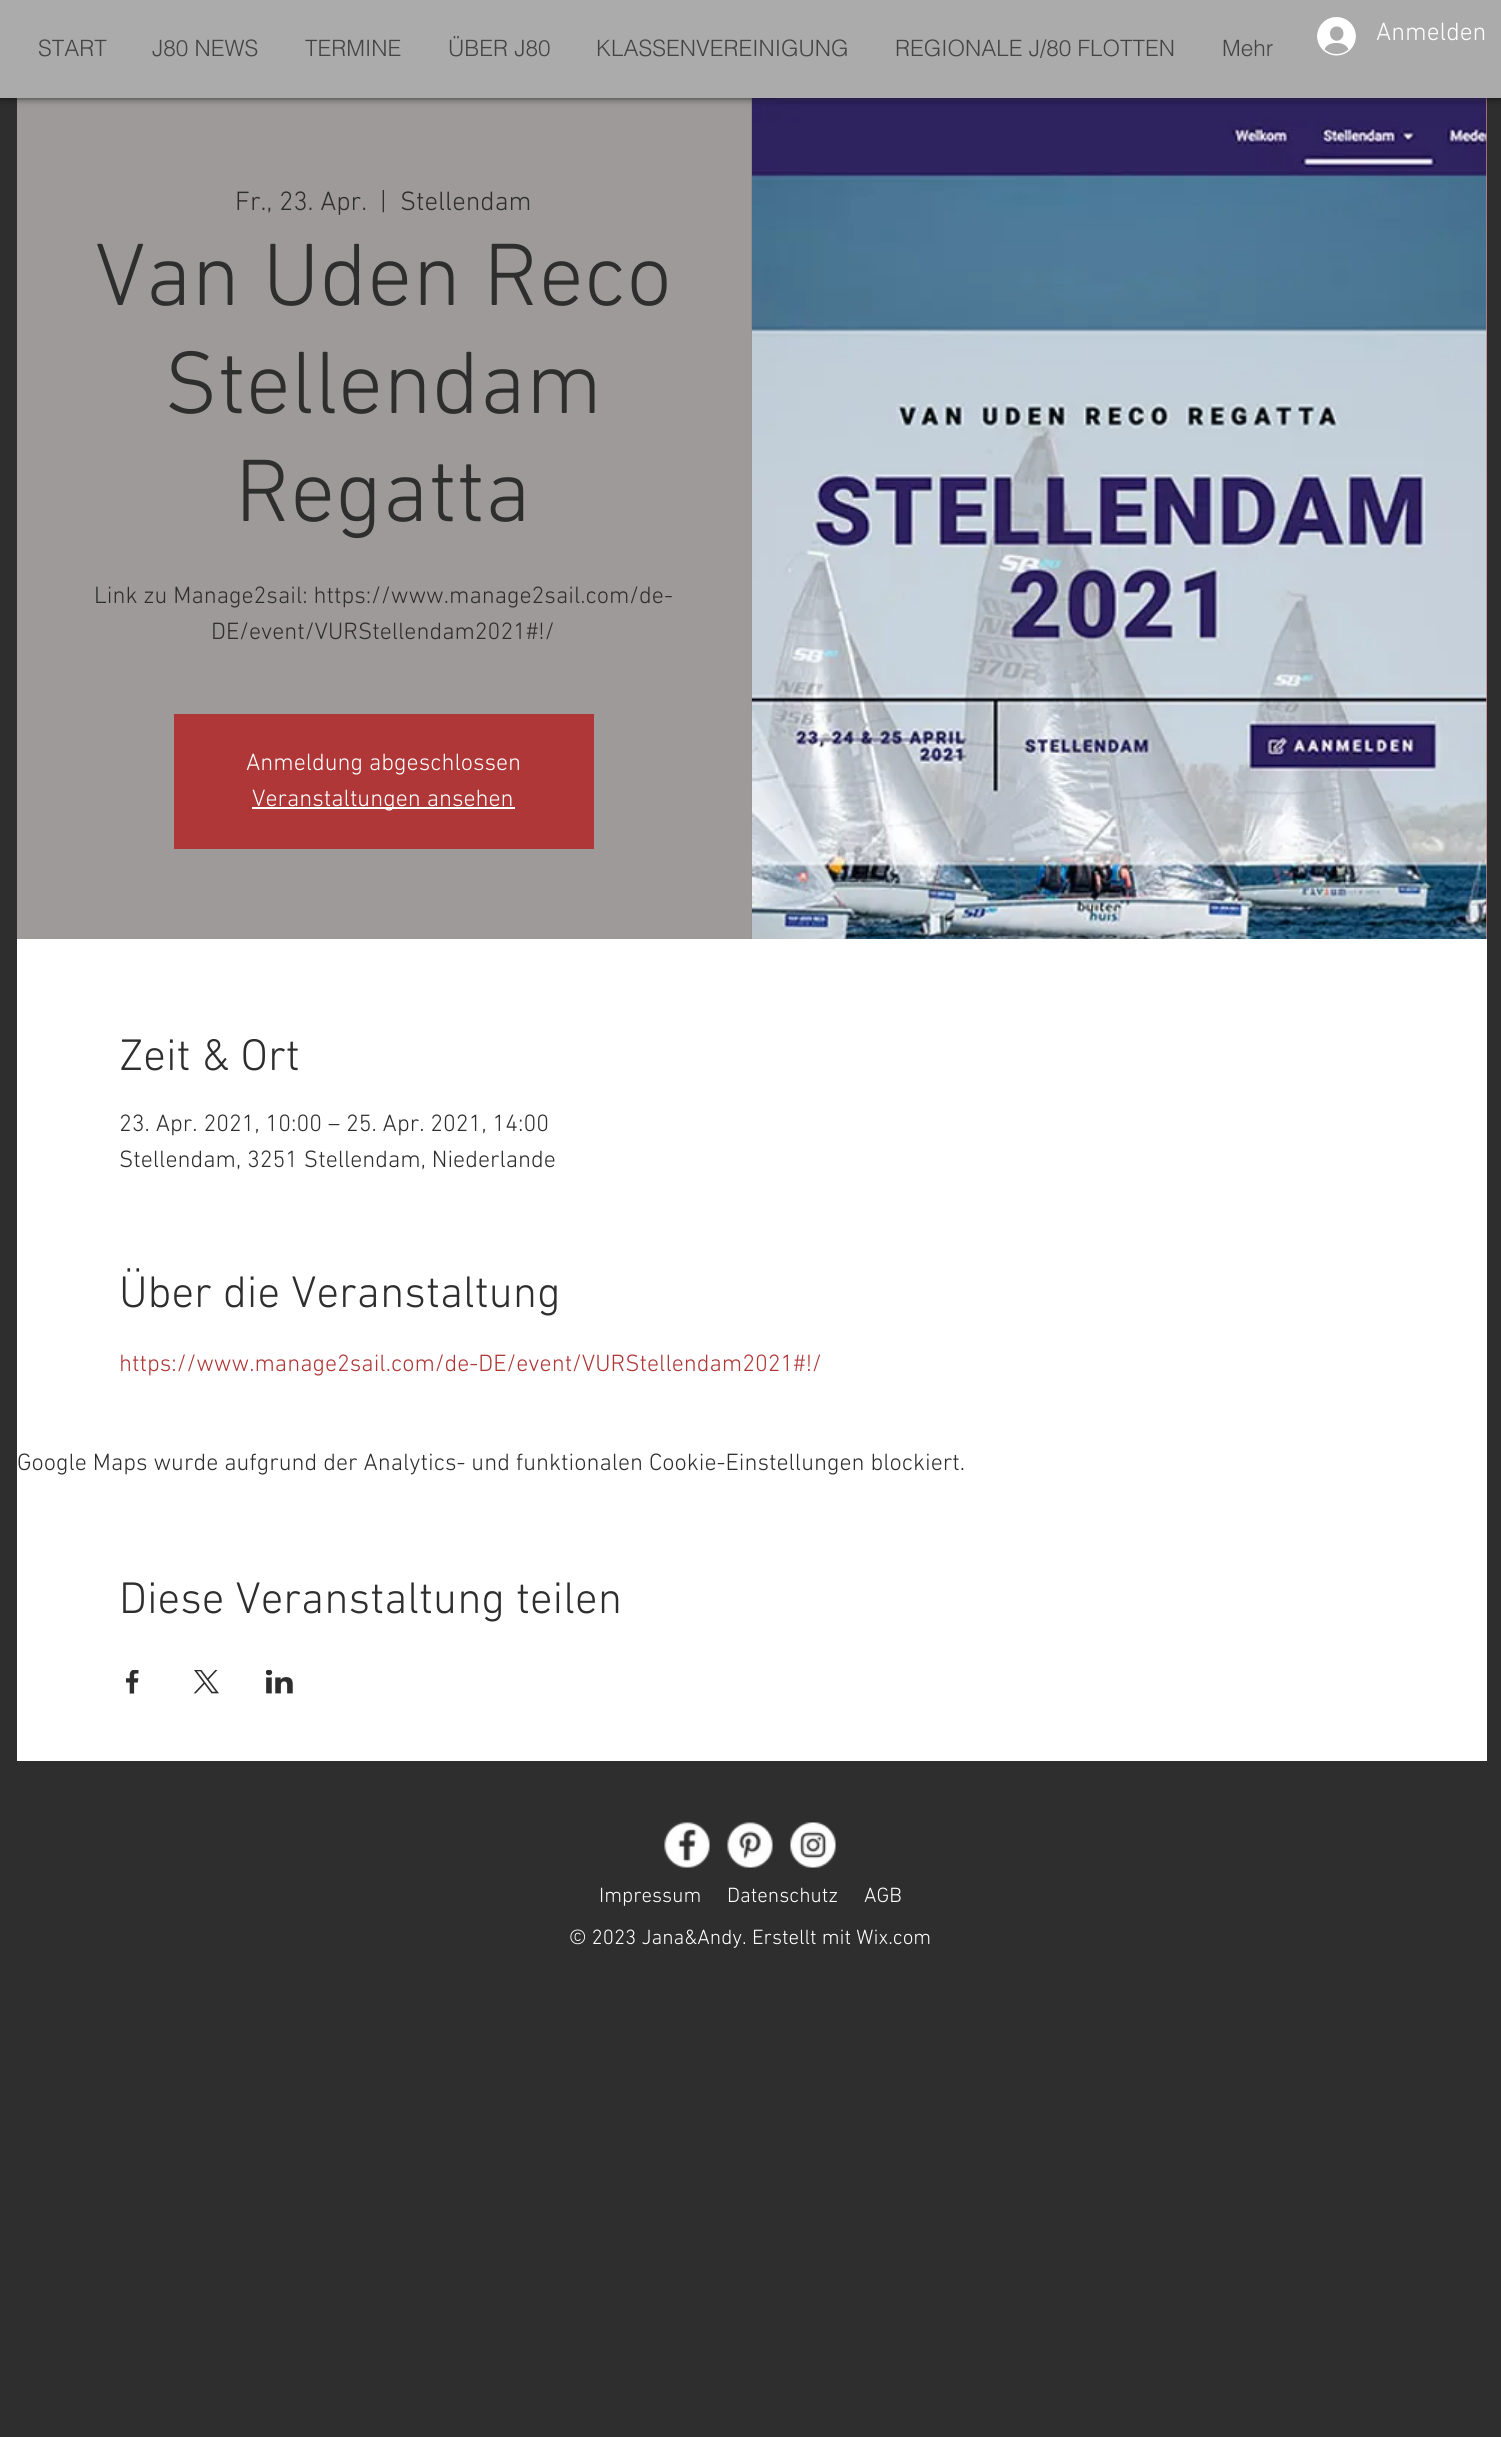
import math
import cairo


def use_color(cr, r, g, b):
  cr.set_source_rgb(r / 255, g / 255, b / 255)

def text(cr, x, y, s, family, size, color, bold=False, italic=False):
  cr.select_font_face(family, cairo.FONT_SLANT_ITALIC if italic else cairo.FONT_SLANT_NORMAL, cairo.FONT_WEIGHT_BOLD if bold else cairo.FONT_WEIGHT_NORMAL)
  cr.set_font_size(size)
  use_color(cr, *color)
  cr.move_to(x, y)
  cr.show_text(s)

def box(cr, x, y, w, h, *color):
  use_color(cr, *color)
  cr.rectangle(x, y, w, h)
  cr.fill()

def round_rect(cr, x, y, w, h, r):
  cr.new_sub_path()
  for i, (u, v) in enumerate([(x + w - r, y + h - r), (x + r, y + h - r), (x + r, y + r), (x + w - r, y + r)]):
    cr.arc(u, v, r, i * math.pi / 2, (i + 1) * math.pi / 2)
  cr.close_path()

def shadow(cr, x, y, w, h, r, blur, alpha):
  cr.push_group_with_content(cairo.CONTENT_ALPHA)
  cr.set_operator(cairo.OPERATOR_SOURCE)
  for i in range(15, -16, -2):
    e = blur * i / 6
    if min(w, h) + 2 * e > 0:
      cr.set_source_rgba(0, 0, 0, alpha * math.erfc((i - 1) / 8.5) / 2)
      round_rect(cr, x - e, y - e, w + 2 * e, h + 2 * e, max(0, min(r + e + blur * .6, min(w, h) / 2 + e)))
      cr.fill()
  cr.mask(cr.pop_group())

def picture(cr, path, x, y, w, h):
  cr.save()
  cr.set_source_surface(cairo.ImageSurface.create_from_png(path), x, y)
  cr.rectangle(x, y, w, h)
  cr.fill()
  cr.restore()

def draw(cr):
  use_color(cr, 47, 46, 46)
  cr.paint()
  box(cr, 17, 98, 1470, 1663, 255, 255, 255)
  box(cr, 1486, 98, 1, 841, 199, 135, 135)
  picture(cr, "img_02.png", 751, 97, 736, 842)
  cr.set_source_rgba(0.431, 0.412, 0.408, 0.67)
  cr.rectangle(17, 98, 735, 841)
  cr.fill()
  cr.save()
  cr.set_fill_rule(cairo.FILL_RULE_EVEN_ODD)
  cr.new_path()
  cr.move_to(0, 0)
  cr.line_to(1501, 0)
  cr.line_to(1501, 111)
  cr.line_to(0, 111)
  cr.close_path()
  cr.move_to(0, 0)
  cr.line_to(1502, 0)
  cr.line_to(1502, 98)
  cr.line_to(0, 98)
  cr.close_path()
  cr.clip()
  use_color(cr, 0, 0, 0)
  shadow(cr, 0, 0, 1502, 98, 0, 4, 0.7)
  cr.restore()
  cr.set_source_rgba(1, 1, 1, 0.6)
  cr.rectangle(0, 0, 1501, 98)
  cr.fill()
  picture(cr, "img_01.png", 1317, 17, 39, 39)
  box(cr, 174, 714, 420, 135, 176, 55, 55)
  box(cr, 252, 807, 263, 2, 255, 255, 255)
  picture(cr, "img_03.png", 126, 1670, 13, 24)
  picture(cr, "img_04.png", 193, 1670, 26, 24)
  picture(cr, "img_05.png", 266, 1670, 27, 24)
  picture(cr, "img_06.png", 664, 1822, 46, 46)
  picture(cr, "img_07.png", 727, 1822, 46, 46)
  picture(cr, "img_08.png", 790, 1822, 46, 46)
  text(cr, 1376, 40, "Anmelden", "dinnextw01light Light", 25.5, (255, 255, 255))
  text(cr, 38, 56, "START", "helvetica Light", 22.5, (68, 68, 68))
  text(cr, 152, 56, "J80 NEWS", "helvetica Light", 22.5, (68, 68, 68))
  text(cr, 305, 56, "TERMINE", "helvetica Light", 22.5, (68, 68, 68))
  text(cr, 448, 56, "ÜBER J80", "helvetica Light", 22.5, (68, 68, 68))
  text(cr, 596, 56, "KLASSENVEREINIGUNG", "helvetica Light", 22.5, (68, 68, 68))
  text(cr, 895, 56, "REGIONALE J/80 FLOTTEN", "helvetica Light", 22.5, (68, 68, 68))
  text(cr, 1222, 56, "Mehr", "helvetica Light", 22.5, (68, 68, 68))
  text(cr, 235, 210, "Fr., 23. Apr.", "dinnextw01light Light", 27, (47, 46, 46))
  text(cr, 380, 210, "|", "dinnextw01light Light", 27, (47, 46, 46))
  text(cr, 400, 210, "Stellendam", "dinnextw01light Light", 27, (47, 46, 46))
  text(cr, 95, 305, "Van Uden Reco", "dinnextw01light Light", 90, (47, 46, 46))
  text(cr, 164, 413, "Stellendam", "dinnextw01light Light", 90, (47, 46, 46))
  text(cr, 235, 521, "Regatta", "dinnextw01light Light", 90, (47, 46, 46))
  text(cr, 94, 603, "Link zu Manage2sail: https://www.manage2sail.com/de-", "dinnextw01light Light", 24, (47, 46, 46))
  text(cr, 211, 639, "DE/event/VURStellendam2021#!/", "dinnextw01light Light", 24, (47, 46, 46))
  text(cr, 246, 770, "Anmeldung abgeschlossen", "dinnextw01light Light", 24, (255, 255, 255))
  text(cr, 252, 806, "Veranstaltungen ansehen", "dinnextw01light Light", 24, (255, 255, 255))
  text(cr, 119, 1070, "Zeit & Ort", "dinnextw01light Light", 45, (47, 46, 46))
  text(cr, 119, 1131, "23. Apr. 2021, 10:00 – 25. Apr. 2021, 14:00", "dinnextw01light Light", 24, (47, 46, 46))
  text(cr, 119, 1167, "Stellendam, 3251 Stellendam, Niederlande", "dinnextw01light Light", 24, (47, 46, 46))
  text(cr, 119, 1307, "Über die Veranstaltung", "dinnextw01light Light", 45, (47, 46, 46))
  text(cr, 119, 1371, "https://www.manage2sail.com/de-DE/event/VURStellendam2021#!/", "dinnextw01light Light", 24, (176, 55, 55))
  text(cr, 17, 1470, "Google Maps wurde aufgrund der Analytics- und funktionalen Cookie-Einstellungen blockiert.", "dinnextw01light Light", 24, (47, 46, 46))
  text(cr, 119, 1613, "Diese Veranstaltung teilen", "dinnextw01light Light", 45, (47, 46, 46))
  text(cr, 599, 1902, "Impressum", "dinnextw01light Light", 21, (255, 255, 255))
  text(cr, 727, 1902, "Datenschutz", "dinnextw01light Light", 21, (255, 255, 255))
  text(cr, 864, 1902, "AGB", "dinnextw01light Light", 21, (255, 255, 255))
  text(cr, 569, 1944, "© 2023 Jana&Andy. Erstellt mit Wix.com", "dinnextw01light Light", 21, (255, 255, 255))


surface = cairo.ImageSurface(cairo.FORMAT_RGB24, 1501, 2437)
cr = cairo.Context(surface)
options = cairo.FontOptions()
options.set_hint_metrics(cairo.HINT_METRICS_OFF)
options.set_hint_style(cairo.HINT_STYLE_NONE)
cr.set_font_options(options)
cr.set_miter_limit(4)
draw(cr)
surface.write_to_png("out.png")
